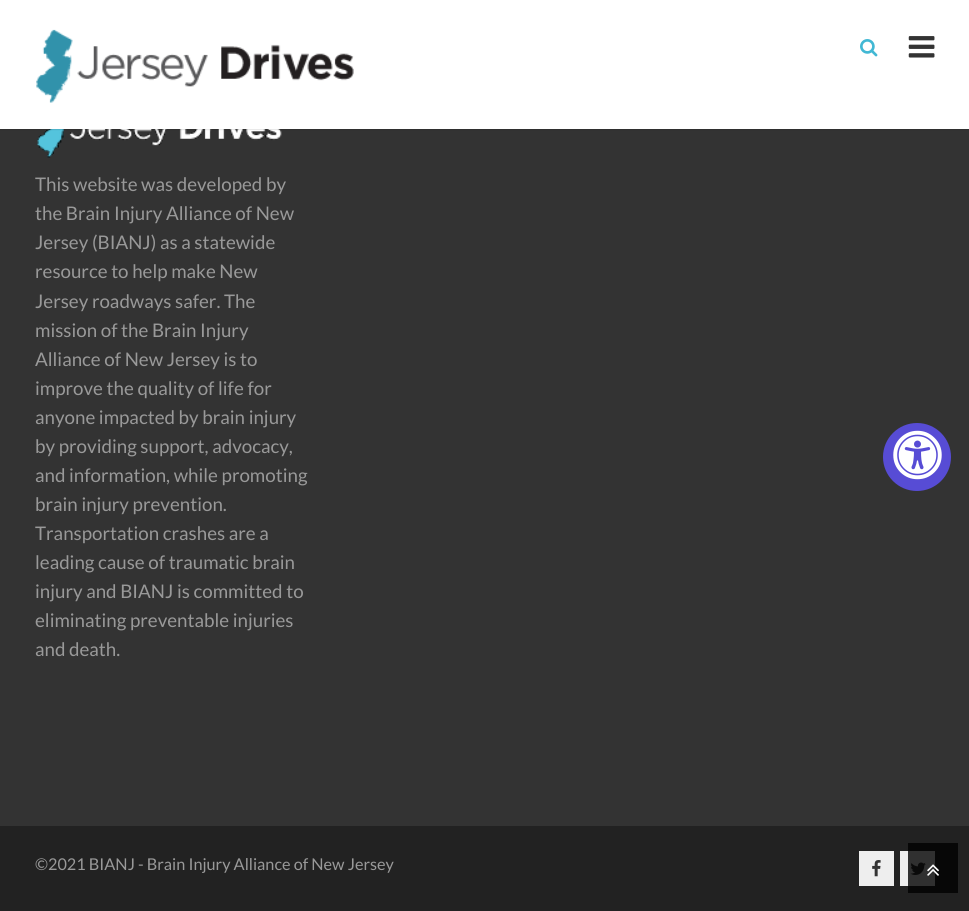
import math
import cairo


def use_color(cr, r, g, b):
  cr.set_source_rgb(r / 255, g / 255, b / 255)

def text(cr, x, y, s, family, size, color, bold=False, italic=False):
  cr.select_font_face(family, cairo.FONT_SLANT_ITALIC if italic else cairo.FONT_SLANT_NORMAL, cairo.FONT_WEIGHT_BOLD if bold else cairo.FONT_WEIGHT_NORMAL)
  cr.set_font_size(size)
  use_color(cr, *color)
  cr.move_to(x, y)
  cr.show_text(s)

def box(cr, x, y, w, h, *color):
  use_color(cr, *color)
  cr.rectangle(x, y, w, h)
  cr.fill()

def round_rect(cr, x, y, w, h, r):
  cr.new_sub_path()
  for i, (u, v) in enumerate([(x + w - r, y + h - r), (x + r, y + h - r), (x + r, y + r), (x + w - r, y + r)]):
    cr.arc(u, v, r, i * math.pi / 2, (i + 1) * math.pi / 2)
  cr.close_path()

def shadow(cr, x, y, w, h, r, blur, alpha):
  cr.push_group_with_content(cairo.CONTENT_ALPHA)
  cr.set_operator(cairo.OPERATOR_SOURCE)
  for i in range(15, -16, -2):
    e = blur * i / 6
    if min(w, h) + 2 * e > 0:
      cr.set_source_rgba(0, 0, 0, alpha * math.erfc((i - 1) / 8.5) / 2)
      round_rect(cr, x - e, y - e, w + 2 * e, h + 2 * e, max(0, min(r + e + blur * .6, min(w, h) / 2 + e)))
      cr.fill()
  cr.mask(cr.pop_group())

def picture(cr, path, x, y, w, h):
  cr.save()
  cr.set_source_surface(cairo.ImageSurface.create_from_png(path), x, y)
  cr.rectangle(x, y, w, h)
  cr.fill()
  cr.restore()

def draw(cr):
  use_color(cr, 51, 51, 51)
  cr.paint()
  picture(cr, "img_04.png", 37, 129, 245, 29)
  use_color(cr, 0, 0, 0)
  shadow(cr, 0, 1, 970, 129, 0, 0.5, 0.1)
  box(cr, 0, 0, 969, 129, 255, 255, 255)
  picture(cr, "img_01.png", 36, 29, 318, 74)
  picture(cr, "img_02.png", 860, 39, 18, 18)
  picture(cr, "img_03.png", 908, 36, 27, 22)
  box(cr, 0, 826, 969, 85, 34, 34, 34)
  box(cr, 908, 843, 50, 50, 7, 7, 7)
  box(cr, 859, 851, 35, 35, 238, 238, 238)
  picture(cr, "img_05.png", 872, 860, 9, 17)
  box(cr, 900, 851, 8, 35, 238, 238, 238)
  box(cr, 908, 851, 27, 35, 48, 48, 48)
  picture(cr, "img_06.png", 910, 862, 16, 13)
  picture(cr, "img_07.png", 927, 864, 12, 12)
  use_color(cr, 87, 76, 213)
  cr.arc(917, 457, 34, 0, 2 * math.pi)
  cr.fill()
  picture(cr, "img_08.png", 893, 430, 49, 50)
  text(cr, 35, 191, "This website was developed by", "Lato", 18.75, (153, 153, 153))
  text(cr, 35, 220, "the Brain Injury Alliance of New", "Lato", 18.75, (153, 153, 153))
  text(cr, 35, 249, "Jersey (BIANJ) as a statewide", "Lato", 18.75, (153, 153, 153))
  text(cr, 35, 278, "resource to help make New", "Lato", 18.75, (153, 153, 153))
  text(cr, 35, 308, "Jersey roadways safer. The", "Lato", 18.75, (153, 153, 153))
  text(cr, 35, 337, "mission of the Brain Injury", "Lato", 18.75, (153, 153, 153))
  text(cr, 35, 366, "Alliance of New Jersey is to", "Lato", 18.75, (153, 153, 153))
  text(cr, 35, 395, "improve the quality of life for", "Lato", 18.75, (153, 153, 153))
  text(cr, 35, 424, "anyone impacted by brain injury", "Lato", 18.75, (153, 153, 153))
  text(cr, 35, 453, "by providing support, advocacy,", "Lato", 18.75, (153, 153, 153))
  text(cr, 35, 482, "and information, while promoting", "Lato", 18.75, (153, 153, 153))
  text(cr, 35, 511, "brain injury prevention.", "Lato", 18.75, (153, 153, 153))
  text(cr, 35, 540, "Transportation crashes are a", "Lato", 18.75, (153, 153, 153))
  text(cr, 35, 569, "leading cause of traumatic brain", "Lato", 18.75, (153, 153, 153))
  text(cr, 35, 598, "injury and BIANJ is committed to", "Lato", 18.75, (153, 153, 153))
  text(cr, 35, 627, "eliminating preventable injuries", "Lato", 18.75, (153, 153, 153))
  text(cr, 35, 656, "and death.", "Lato", 18.75, (153, 153, 153))
  text(cr, 35, 870, "©2021 BIANJ - Brain Injury Alliance of New Jersey", "Lato", 16.25, (153, 153, 153))


surface = cairo.ImageSurface(cairo.FORMAT_RGB24, 969, 911)
cr = cairo.Context(surface)
options = cairo.FontOptions()
options.set_hint_metrics(cairo.HINT_METRICS_OFF)
options.set_hint_style(cairo.HINT_STYLE_NONE)
cr.set_font_options(options)
cr.set_miter_limit(4)
draw(cr)
surface.write_to_png("out.png")
